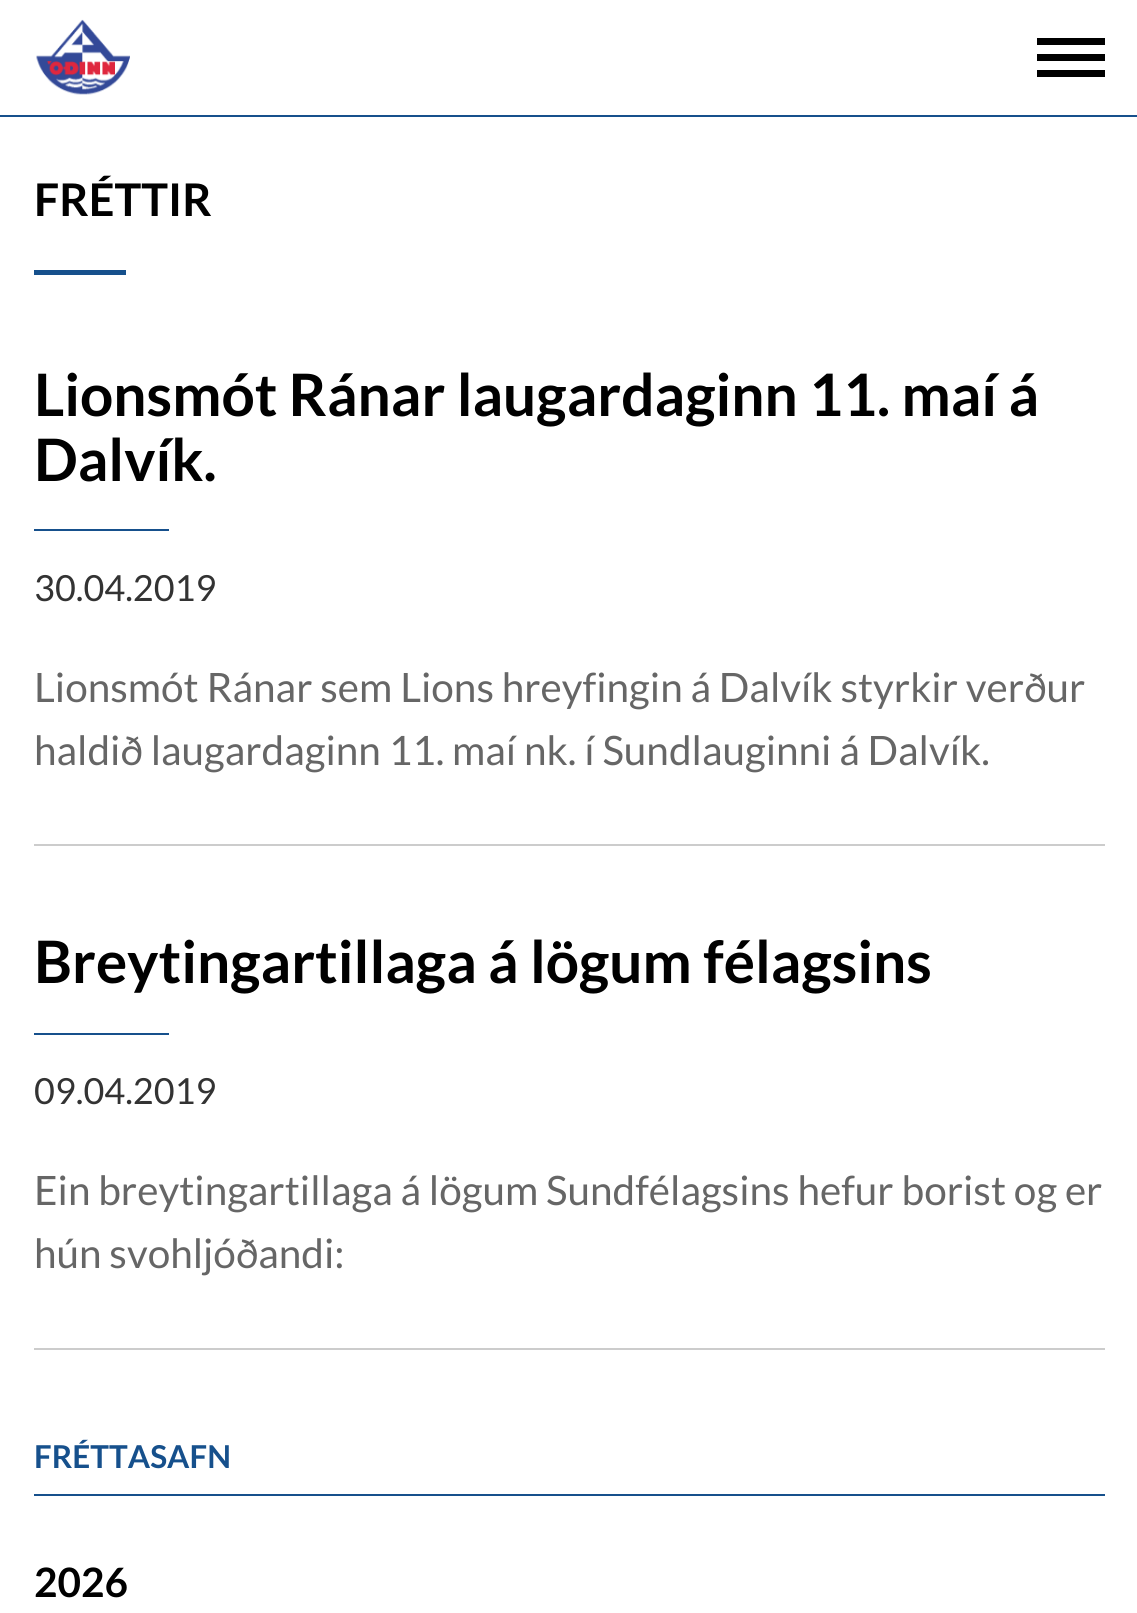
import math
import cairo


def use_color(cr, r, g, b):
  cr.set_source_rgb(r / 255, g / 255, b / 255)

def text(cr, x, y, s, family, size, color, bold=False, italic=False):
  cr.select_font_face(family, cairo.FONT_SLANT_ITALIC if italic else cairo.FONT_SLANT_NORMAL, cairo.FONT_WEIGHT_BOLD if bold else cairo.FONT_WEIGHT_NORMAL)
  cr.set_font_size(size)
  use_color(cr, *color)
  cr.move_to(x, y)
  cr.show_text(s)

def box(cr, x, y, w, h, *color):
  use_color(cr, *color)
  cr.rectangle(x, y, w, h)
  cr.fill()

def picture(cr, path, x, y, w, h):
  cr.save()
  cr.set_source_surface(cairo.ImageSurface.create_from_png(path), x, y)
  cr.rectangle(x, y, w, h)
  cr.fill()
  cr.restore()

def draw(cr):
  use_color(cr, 255, 255, 255)
  cr.paint()
  box(cr, 0, 115, 1137, 2, 22, 80, 140)
  picture(cr, "img_01.png", 36, 19, 94, 76)
  box(cr, 1037, 38, 68, 7, 0, 0, 0)
  box(cr, 1037, 54, 68, 7, 0, 0, 0)
  box(cr, 1037, 70, 68, 7, 0, 0, 0)
  box(cr, 34, 270, 92, 5, 22, 80, 140)
  box(cr, 34, 844, 1071, 2, 204, 204, 204)
  box(cr, 34, 529, 135, 2, 22, 80, 140)
  box(cr, 34, 1348, 1071, 2, 204, 204, 204)
  box(cr, 34, 1033, 135, 2, 22, 80, 140)
  box(cr, 34, 1494, 1071, 2, 22, 80, 140)
  text(cr, 34, 216, "FRÉTTIR", "Lato", 45, (0, 0, 0), bold=True)
  text(cr, 34, 416, "Lionsmót Ránar laugardaginn 11. maí á", "Lato", 58.5, (0, 0, 0), bold=True)
  text(cr, 34, 481, "Dalvík.", "Lato", 58.5, (0, 0, 0), bold=True)
  text(cr, 34, 601, "30.04.2019", "Lato", 36, (51, 51, 51))
  text(cr, 34, 702, "Lionsmót Ránar sem Lions hreyfingin á Dalvík styrkir verður", "Lato", 40.5, (102, 102, 102))
  text(cr, 34, 765, "haldið laugardaginn 11. maí nk. í Sundlauginni á Dalvík.", "Lato", 40.5, (102, 102, 102))
  text(cr, 34, 983, "Breytingartillaga á lögum félagsins", "Lato", 58.5, (0, 0, 0), bold=True)
  text(cr, 34, 1104, "09.04.2019", "Lato", 36, (51, 51, 51))
  text(cr, 34, 1205, "Ein breytingartillaga á lögum Sundfélagsins hefur borist og er", "Lato", 40.5, (102, 102, 102))
  text(cr, 34, 1268, "hún svohljóðandi:", "Lato", 40.5, (102, 102, 102))
  text(cr, 34, 1468, "FRÉTTASAFN", "Lato", 31.5, (22, 80, 140), bold=True)
  text(cr, 34, 1597, "2026", "Lato", 40.5, (0, 0, 0), bold=True)


surface = cairo.ImageSurface(cairo.FORMAT_RGB24, 1137, 1613)
cr = cairo.Context(surface)
options = cairo.FontOptions()
options.set_hint_metrics(cairo.HINT_METRICS_OFF)
options.set_hint_style(cairo.HINT_STYLE_NONE)
cr.set_font_options(options)
cr.set_miter_limit(4)
draw(cr)
surface.write_to_png("out.png")
